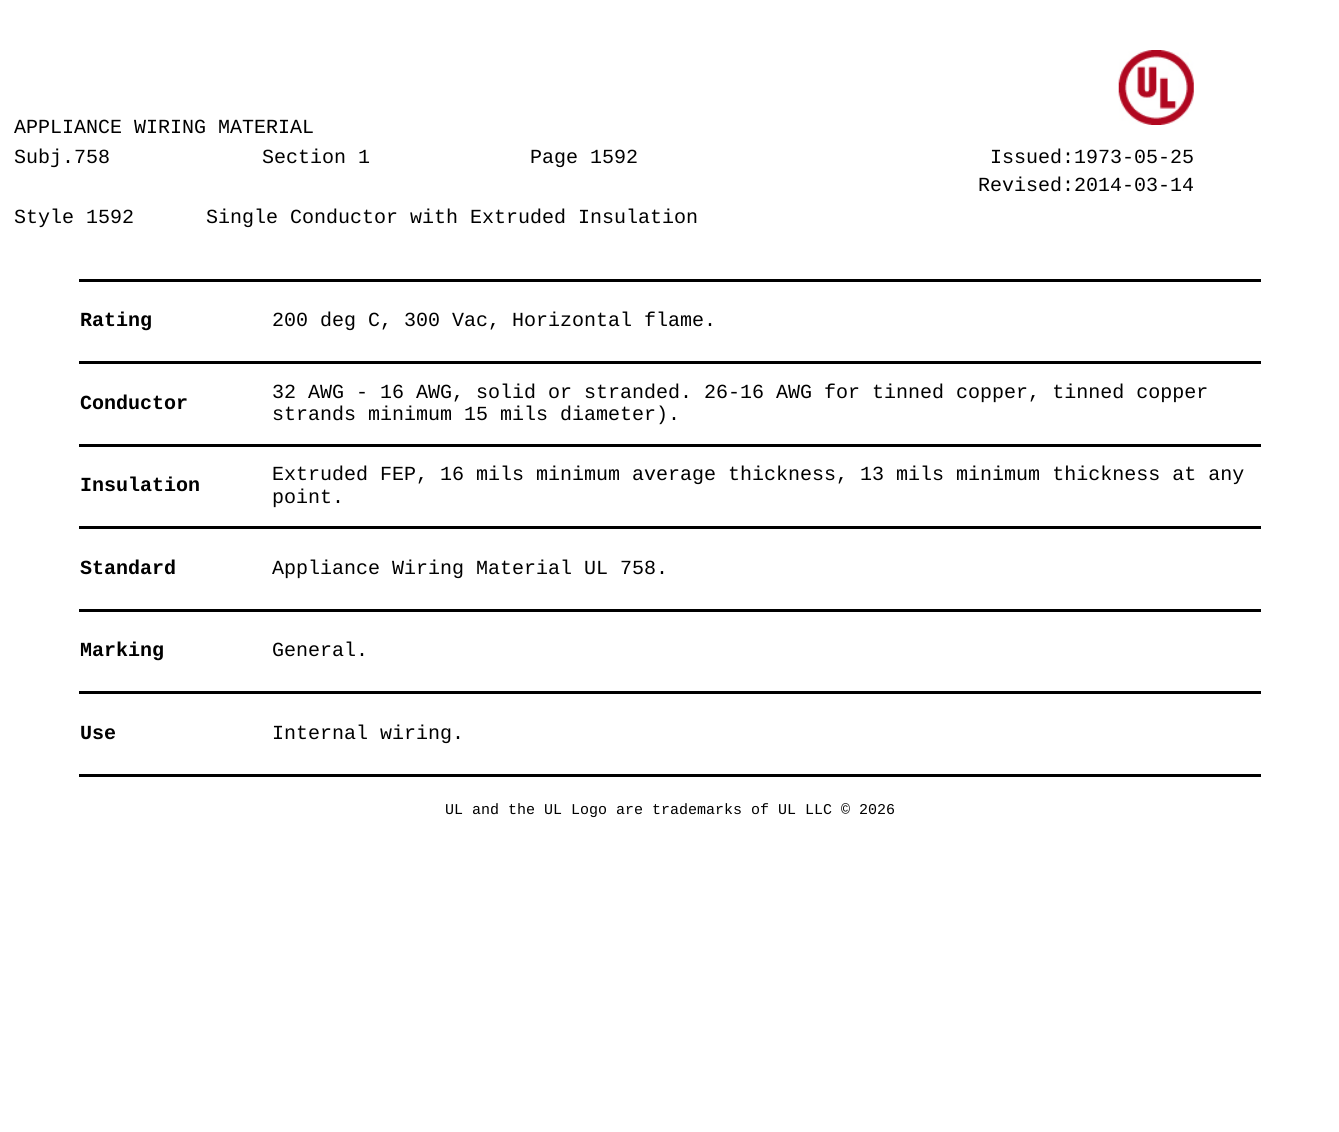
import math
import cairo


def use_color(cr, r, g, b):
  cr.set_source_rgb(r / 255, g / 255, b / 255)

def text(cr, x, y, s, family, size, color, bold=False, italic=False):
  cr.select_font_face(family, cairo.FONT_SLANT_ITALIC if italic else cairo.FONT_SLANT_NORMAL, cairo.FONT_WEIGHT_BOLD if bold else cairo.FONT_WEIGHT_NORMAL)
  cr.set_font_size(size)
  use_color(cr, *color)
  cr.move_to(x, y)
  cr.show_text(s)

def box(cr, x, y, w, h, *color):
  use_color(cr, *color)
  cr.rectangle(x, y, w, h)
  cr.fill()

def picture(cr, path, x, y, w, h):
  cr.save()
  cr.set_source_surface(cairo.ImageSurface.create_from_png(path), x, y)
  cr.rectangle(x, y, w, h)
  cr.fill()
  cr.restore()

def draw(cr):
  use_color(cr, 255, 255, 255)
  cr.paint()
  picture(cr, "img_01.png", 1118, 50, 76, 75)
  box(cr, 79, 279, 1182, 3, 0, 0, 0)
  box(cr, 79, 361, 1182, 3, 0, 0, 0)
  box(cr, 79, 444, 1182, 3, 0, 0, 0)
  box(cr, 79, 526, 1182, 3, 0, 0, 0)
  box(cr, 79, 609, 1182, 3, 0, 0, 0)
  box(cr, 79, 691, 1182, 3, 0, 0, 0)
  box(cr, 79, 774, 1182, 3, 0, 0, 0)
  text(cr, 14, 133, "APPLIANCE WIRING MATERIAL", "Liberation Mono", 20, (0, 0, 0))
  text(cr, 14, 163, "Subj.758", "Liberation Mono", 20, (0, 0, 0))
  text(cr, 262, 163, "Section 1", "Liberation Mono", 20, (0, 0, 0))
  text(cr, 530, 163, "Page 1592", "Liberation Mono", 20, (0, 0, 0))
  text(cr, 990, 163, "Issued:1973-05-25", "Liberation Mono", 20, (0, 0, 0))
  text(cr, 978, 191, "Revised:2014-03-14", "Liberation Mono", 20, (0, 0, 0))
  text(cr, 14, 223, "Style 1592", "Liberation Mono", 20, (0, 0, 0))
  text(cr, 206, 223, "Single Conductor with Extruded Insulation", "Liberation Mono", 20, (0, 0, 0))
  text(cr, 80, 326, "Rating", "Liberation Mono", 20, (0, 0, 0), bold=True)
  text(cr, 272, 326, "200 deg C, 300 Vac, Horizontal flame.", "Liberation Mono", 20, (0, 0, 0))
  text(cr, 80, 409, "Conductor", "Liberation Mono", 20, (0, 0, 0), bold=True)
  text(cr, 272, 398, "32 AWG - 16 AWG, solid or stranded. 26-16 AWG for tinned copper, tinned copper", "Liberation Mono", 20, (0, 0, 0))
  text(cr, 272, 420, "strands minimum 15 mils diameter).", "Liberation Mono", 20, (0, 0, 0))
  text(cr, 80, 491, "Insulation", "Liberation Mono", 20, (0, 0, 0), bold=True)
  text(cr, 272, 480, "Extruded FEP, 16 mils minimum average thickness, 13 mils minimum thickness at any", "Liberation Mono", 20, (0, 0, 0))
  text(cr, 272, 503, "point.", "Liberation Mono", 20, (0, 0, 0))
  text(cr, 80, 574, "Standard", "Liberation Mono", 20, (0, 0, 0), bold=True)
  text(cr, 272, 574, "Appliance Wiring Material UL 758.", "Liberation Mono", 20, (0, 0, 0))
  text(cr, 80, 656, "Marking", "Liberation Mono", 20, (0, 0, 0), bold=True)
  text(cr, 272, 656, "General.", "Liberation Mono", 20, (0, 0, 0))
  text(cr, 80, 739, "Use", "Liberation Mono", 20, (0, 0, 0), bold=True)
  text(cr, 272, 739, "Internal wiring.", "Liberation Mono", 20, (0, 0, 0))
  text(cr, 445, 814, "UL and the UL Logo are trademarks of UL LLC © 2026", "Liberation Mono", 15, (0, 0, 0))


surface = cairo.ImageSurface(cairo.FORMAT_RGB24, 1339, 1132)
cr = cairo.Context(surface)
options = cairo.FontOptions()
options.set_hint_metrics(cairo.HINT_METRICS_OFF)
options.set_hint_style(cairo.HINT_STYLE_NONE)
cr.set_font_options(options)
cr.set_miter_limit(4)
draw(cr)
surface.write_to_png("out.png")
